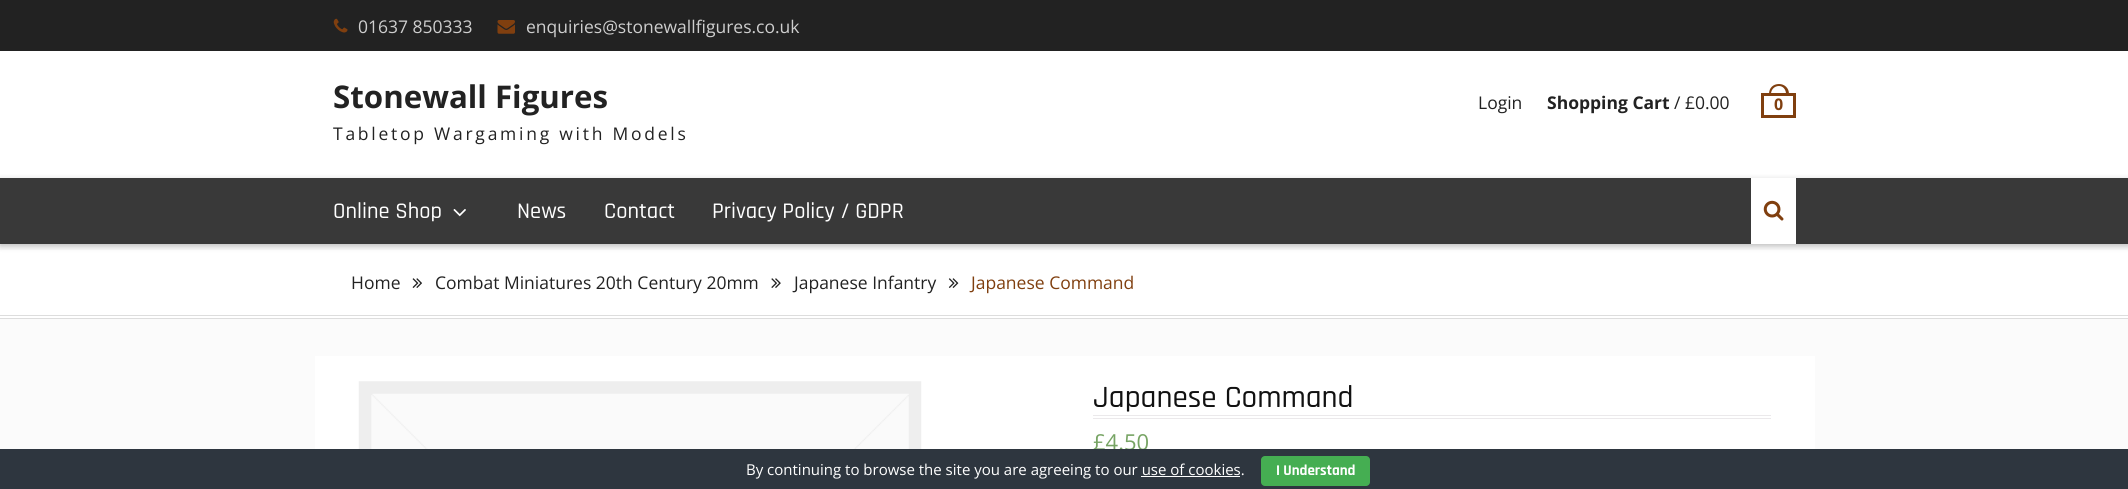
import math
import cairo


def use_color(cr, r, g, b):
  cr.set_source_rgb(r / 255, g / 255, b / 255)

def text(cr, x, y, s, family, size, color, bold=False, italic=False):
  cr.select_font_face(family, cairo.FONT_SLANT_ITALIC if italic else cairo.FONT_SLANT_NORMAL, cairo.FONT_WEIGHT_BOLD if bold else cairo.FONT_WEIGHT_NORMAL)
  cr.set_font_size(size)
  use_color(cr, *color)
  cr.move_to(x, y)
  cr.show_text(s)

def spaced_text(cr, x, y, s, letter, word):
  cr.move_to(x, y)
  for ch in s:
    cr.show_text(ch)
    cr.rel_move_to(letter + word * (ch == ' '), 0)

def box(cr, x, y, w, h, *color):
  use_color(cr, *color)
  cr.rectangle(x, y, w, h)
  cr.fill()

def round_rect(cr, x, y, w, h, r):
  cr.new_sub_path()
  for i, (u, v) in enumerate([(x + w - r, y + h - r), (x + r, y + h - r), (x + r, y + r), (x + w - r, y + r)]):
    cr.arc(u, v, r, i * math.pi / 2, (i + 1) * math.pi / 2)
  cr.close_path()

def shadow(cr, x, y, w, h, r, blur, alpha):
  cr.push_group_with_content(cairo.CONTENT_ALPHA)
  cr.set_operator(cairo.OPERATOR_SOURCE)
  for i in range(15, -16, -2):
    e = blur * i / 6
    if min(w, h) + 2 * e > 0:
      cr.set_source_rgba(0, 0, 0, alpha * math.erfc((i - 1) / 8.5) / 2)
      round_rect(cr, x - e, y - e, w + 2 * e, h + 2 * e, max(0, min(r + e + blur * .6, min(w, h) / 2 + e)))
      cr.fill()
  cr.mask(cr.pop_group())

def picture(cr, path, x, y, w, h):
  cr.save()
  cr.set_source_surface(cairo.ImageSurface.create_from_png(path), x, y)
  cr.rectangle(x, y, w, h)
  cr.fill()
  cr.restore()

def draw(cr):
  use_color(cr, 251, 251, 251)
  cr.paint()
  box(cr, 0, 0, 2128, 51, 34, 34, 34)
  picture(cr, "img_01.png", 333, 18, 15, 15)
  picture(cr, "img_02.png", 497, 20, 18, 14)
  box(cr, 0, 51, 2128, 127, 255, 255, 255)
  use_color(cr, 128, 63, 15)
  cr.set_fill_rule(cairo.FILL_RULE_EVEN_ODD)
  cr.new_path()
  cr.move_to(1779, 84)
  cr.curve_to(1784.5, 84, 1789, 88, 1789, 94)
  cr.line_to(1769, 94)
  cr.curve_to(1769, 88, 1773, 84, 1779, 84)
  cr.close_path()
  cr.move_to(1779, 86)
  cr.curve_to(1783, 86, 1786, 89.5, 1786, 94)
  cr.line_to(1771, 94)
  cr.curve_to(1771, 89.5, 1774.5, 86, 1779, 86)
  cr.close_path()
  cr.fill()
  cr.rectangle(1762.5, 94.5, 32, 22)
  cr.set_line_width(3)
  cr.stroke()
  box(cr, 0, 250, 2128, 68, 255, 255, 255)
  use_color(cr, 0, 0, 0)
  shadow(cr, 0, 180, 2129, 66, 0, 3, 0.26)
  box(cr, 0, 178, 2128, 66, 57, 57, 57)
  picture(cr, "img_03.png", 453, 209, 13, 8)
  box(cr, 1751, 178, 45, 66, 255, 255, 255)
  picture(cr, "img_04.png", 1763, 200, 21, 21)
  box(cr, 0, 315, 2128, 1, 221, 221, 221)
  box(cr, 0, 318, 2128, 1, 221, 221, 221)
  picture(cr, "img_05.png", 412, 278, 10, 10)
  picture(cr, "img_06.png", 771, 278, 10, 10)
  picture(cr, "img_07.png", 948, 278, 11, 10)
  box(cr, 315, 356, 1500, 93, 255, 255, 255)
  picture(cr, "img_08.png", 358, 381, 564, 68)
  box(cr, 1093, 415, 678, 1, 235, 233, 235)
  box(cr, 1093, 418, 678, 1, 235, 233, 235)
  text(cr, 358, 33, "01637 850333", "Open Sans", 17.5, (206, 206, 206))
  text(cr, 526, 33, "enquiries@stonewallfigures.co.uk", "Open Sans", 17.5, (206, 206, 206))
  text(cr, 333, 108, "Stonewall Figures", "Open Sans", 31.25, (34, 34, 34), bold=True)
  cr.select_font_face("Open Sans")
  cr.set_font_size(17.5)
  spaced_text(cr, 333, 140, "Tabletop Wargaming with Models", 2.75, 0)
  text(cr, 1478, 109, "Login", "Open Sans", 17.5, (34, 34, 34))
  text(cr, 1547, 109, "Shopping Cart", "Open Sans", 17.5, (34, 34, 34), bold=True)
  text(cr, 1674, 109, "/ £0.00", "Open Sans", 17.5, (34, 34, 34))
  text(cr, 1774, 110, "0", "Open Sans", 16, (128, 63, 15), bold=True)
  text(cr, 333, 218, "Online Shop", "Rajdhani Medium", 22.5, (255, 255, 255))
  text(cr, 517, 218, "News", "Rajdhani Medium", 22.5, (255, 255, 255))
  text(cr, 604, 218, "Contact", "Rajdhani Medium", 22.5, (255, 255, 255))
  text(cr, 712, 218, "Privacy Policy / GDPR", "Rajdhani Medium", 22.5, (255, 255, 255))
  text(cr, 351, 289, "Home", "Open Sans", 17.5, (34, 34, 34))
  text(cr, 435, 289, "Combat Miniatures 20th Century 20mm", "Open Sans", 17.5, (34, 34, 34))
  text(cr, 794, 289, "Japanese Infantry", "Open Sans", 17.5, (34, 34, 34))
  text(cr, 971, 289, "Japanese Command", "Open Sans", 17.5, (128, 63, 15))
  text(cr, 1093, 407, "Japanese Command", "Rajdhani Medium", 31.25, (17, 17, 17))
  text(cr, 1093, 450, "£4.50", "Open Sans", 22, (119, 164, 100))
  box(cr, 0, 449, 2128, 40, 46, 54, 63)
  text(cr, 746, 475, "By continuing to browse the site you are agreeing to our use of cookies.", "Open Sans", 15, (255, 255, 255))
  use_color(cr, 69, 174, 82)
  round_rect(cr, 1261, 456, 109, 30, 4)
  cr.fill()
  text(cr, 1276, 475, "I Understand", "Rajdhani", 15, (255, 255, 255), bold=True)
  box(cr, 1141, 476, 99, 1, 255, 255, 255)


surface = cairo.ImageSurface(cairo.FORMAT_RGB24, 2128, 489)
cr = cairo.Context(surface)
options = cairo.FontOptions()
options.set_hint_metrics(cairo.HINT_METRICS_OFF)
options.set_hint_style(cairo.HINT_STYLE_NONE)
cr.set_font_options(options)
cr.set_miter_limit(4)
draw(cr)
surface.write_to_png("out.png")
